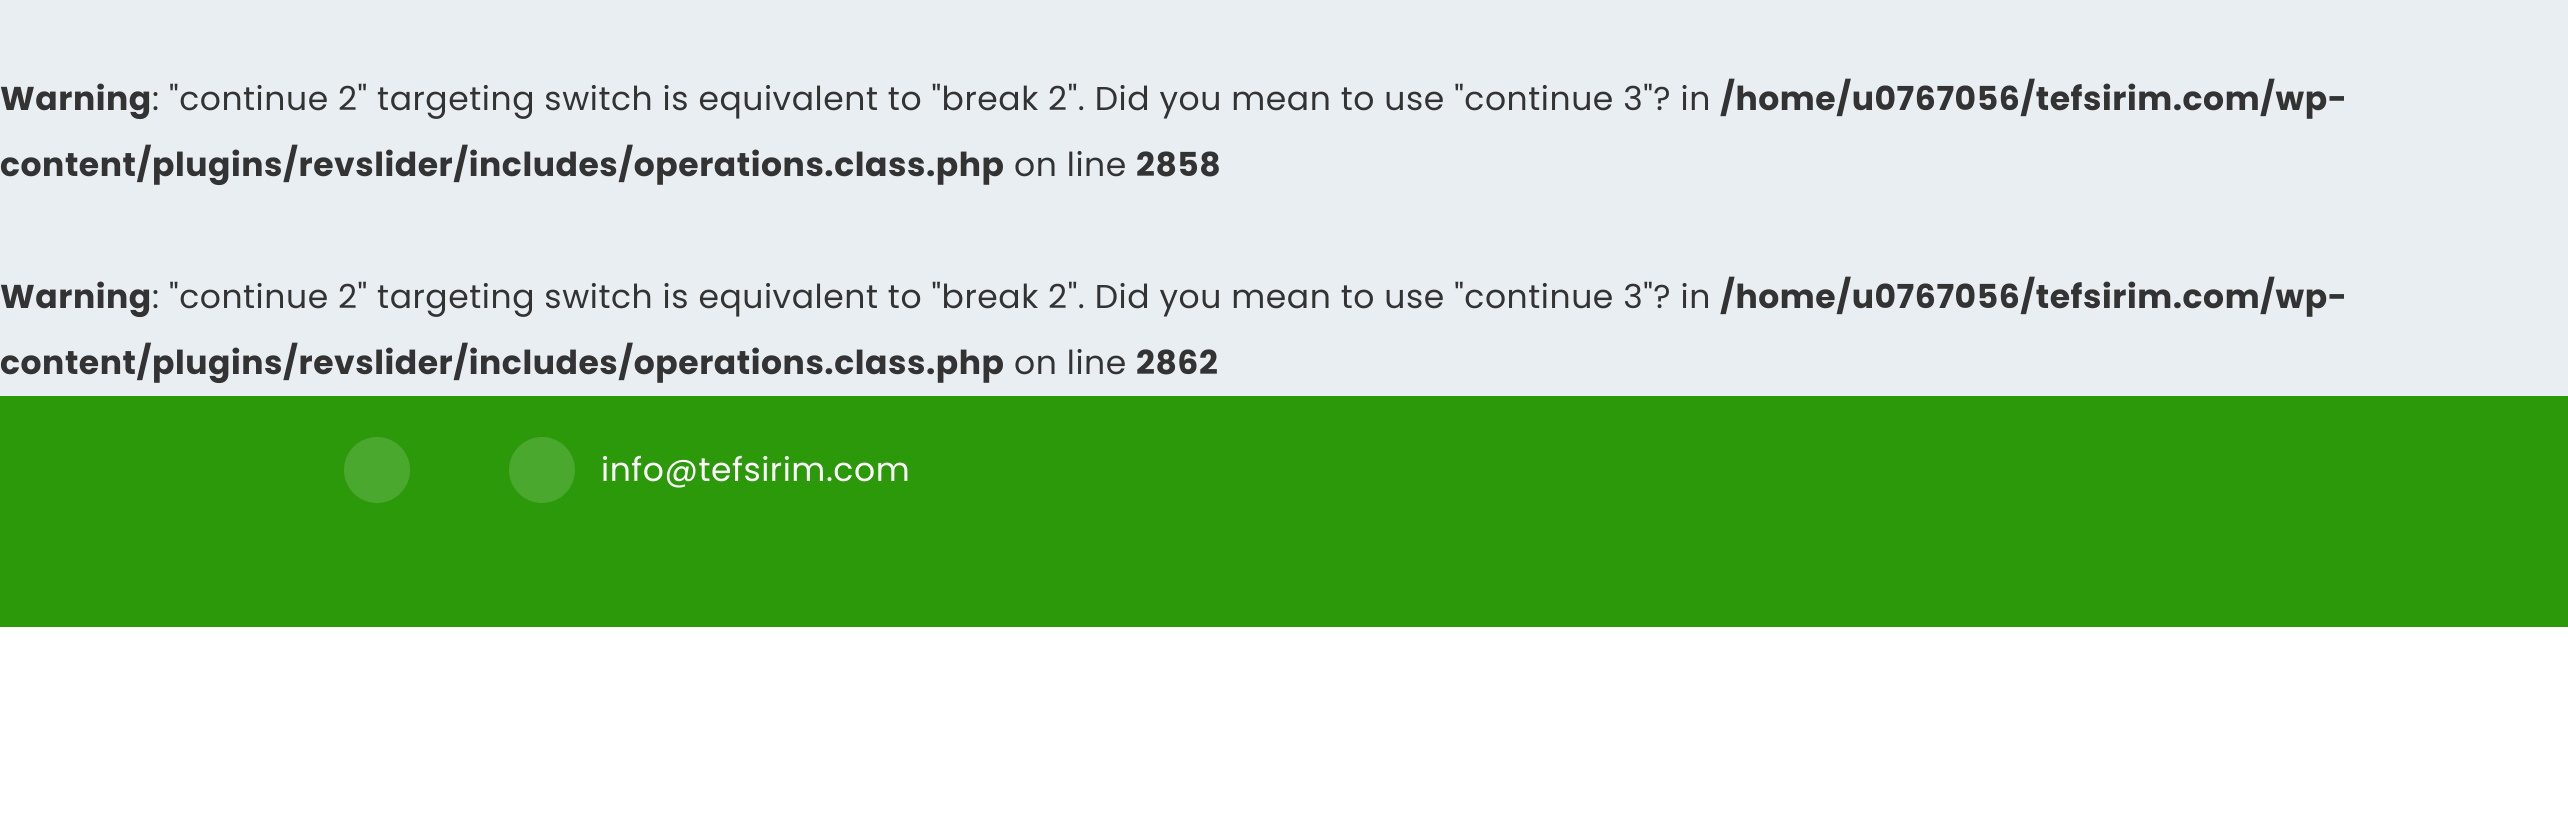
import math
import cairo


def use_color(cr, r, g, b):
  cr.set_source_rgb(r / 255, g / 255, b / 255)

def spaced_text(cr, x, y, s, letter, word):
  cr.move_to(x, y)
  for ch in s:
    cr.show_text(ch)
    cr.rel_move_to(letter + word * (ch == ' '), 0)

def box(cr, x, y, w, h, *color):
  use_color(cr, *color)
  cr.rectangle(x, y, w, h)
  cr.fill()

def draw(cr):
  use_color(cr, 233, 238, 243)
  cr.paint()
  box(cr, 0, 627, 2568, 210, 255, 255, 255)
  box(cr, 0, 396, 2568, 231, 43, 153, 10)
  use_color(cr, 75, 168, 47)
  cr.arc(377, 470, 33, 0, 2 * math.pi)
  cr.fill()
  cr.arc(542, 470, 33, 0, 2 * math.pi)
  cr.fill()
  cr.select_font_face("Poppins", cairo.FONT_SLANT_NORMAL, cairo.FONT_WEIGHT_BOLD)
  cr.set_font_size(33)
  use_color(cr, 51, 51, 51)
  spaced_text(cr, 0, 110, "Warning", 0.55, 0)
  cr.select_font_face("Poppins")
  spaced_text(cr, 152, 110, ": \"continue 2\" targeting switch is equivalent to \"break 2\". Did you mean to use \"continue 3\"? in", 0.55, 0)
  cr.select_font_face("Poppins", cairo.FONT_SLANT_NORMAL, cairo.FONT_WEIGHT_BOLD)
  spaced_text(cr, 1720, 110, "/home/u0767056/tefsirim.com/wp-", 0.55, 0)
  spaced_text(cr, 0, 176, "content/plugins/revslider/includes/operations.class.php", 0.55, 0)
  cr.select_font_face("Poppins")
  spaced_text(cr, 1014, 176, "on line", 0.55, 0)
  cr.select_font_face("Poppins", cairo.FONT_SLANT_NORMAL, cairo.FONT_WEIGHT_BOLD)
  spaced_text(cr, 1136, 176, "2858", 0.55, 0)
  spaced_text(cr, 0, 308, "Warning", 0.55, 0)
  cr.select_font_face("Poppins")
  spaced_text(cr, 152, 308, ": \"continue 2\" targeting switch is equivalent to \"break 2\". Did you mean to use \"continue 3\"? in", 0.55, 0)
  cr.select_font_face("Poppins", cairo.FONT_SLANT_NORMAL, cairo.FONT_WEIGHT_BOLD)
  spaced_text(cr, 1720, 308, "/home/u0767056/tefsirim.com/wp-", 0.55, 0)
  spaced_text(cr, 0, 374, "content/plugins/revslider/includes/operations.class.php", 0.55, 0)
  cr.select_font_face("Poppins")
  spaced_text(cr, 1014, 374, "on line", 0.55, 0)
  cr.select_font_face("Poppins", cairo.FONT_SLANT_NORMAL, cairo.FONT_WEIGHT_BOLD)
  spaced_text(cr, 1136, 374, "2862", 0.55, 0)
  cr.select_font_face("Poppins")
  use_color(cr, 255, 255, 255)
  spaced_text(cr, 601, 481, "info@tefsirim.com", 0.55, 0)


surface = cairo.ImageSurface(cairo.FORMAT_RGB24, 2568, 837)
cr = cairo.Context(surface)
options = cairo.FontOptions()
options.set_hint_metrics(cairo.HINT_METRICS_OFF)
options.set_hint_style(cairo.HINT_STYLE_NONE)
cr.set_font_options(options)
cr.set_miter_limit(4)
draw(cr)
surface.write_to_png("out.png")
